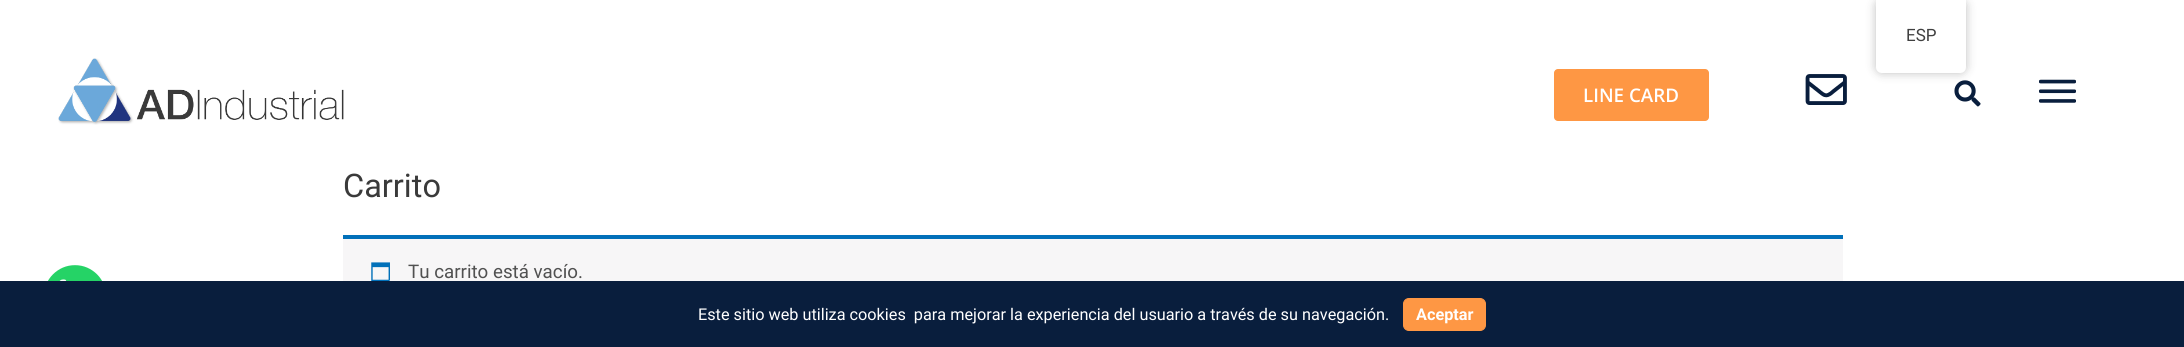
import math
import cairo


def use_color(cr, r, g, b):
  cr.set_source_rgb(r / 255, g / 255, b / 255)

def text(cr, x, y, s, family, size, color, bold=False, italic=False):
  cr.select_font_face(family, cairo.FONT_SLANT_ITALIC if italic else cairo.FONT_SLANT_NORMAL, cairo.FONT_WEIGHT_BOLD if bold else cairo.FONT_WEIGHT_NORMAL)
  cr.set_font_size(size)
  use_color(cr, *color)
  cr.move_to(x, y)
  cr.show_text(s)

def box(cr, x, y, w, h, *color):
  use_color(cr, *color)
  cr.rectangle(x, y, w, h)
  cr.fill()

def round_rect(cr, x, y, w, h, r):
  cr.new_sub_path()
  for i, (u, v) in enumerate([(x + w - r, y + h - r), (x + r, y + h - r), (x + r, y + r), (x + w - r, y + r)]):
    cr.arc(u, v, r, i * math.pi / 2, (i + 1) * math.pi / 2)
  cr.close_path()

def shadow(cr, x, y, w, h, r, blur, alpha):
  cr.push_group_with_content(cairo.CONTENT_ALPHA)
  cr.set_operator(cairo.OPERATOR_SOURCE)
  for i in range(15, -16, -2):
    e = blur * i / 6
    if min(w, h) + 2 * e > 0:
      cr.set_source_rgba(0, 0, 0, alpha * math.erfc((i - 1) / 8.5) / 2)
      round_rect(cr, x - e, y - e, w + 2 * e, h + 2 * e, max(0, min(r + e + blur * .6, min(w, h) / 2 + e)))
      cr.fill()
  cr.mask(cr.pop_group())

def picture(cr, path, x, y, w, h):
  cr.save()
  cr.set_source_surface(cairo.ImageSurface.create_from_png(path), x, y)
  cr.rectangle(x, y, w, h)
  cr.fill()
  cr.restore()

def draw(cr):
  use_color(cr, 255, 255, 255)
  cr.paint()
  picture(cr, "img_03.png", 1954, 80, 27, 27)
  use_color(cr, 0, 0, 0)
  shadow(cr, 1876, 0, 90, 73, 6, 5, 0.25)
  use_color(cr, 255, 255, 255)
  cr.new_path()
  cr.move_to(1876, 0)
  cr.line_to(1966, 0)
  cr.line_to(1966, 67)
  cr.curve_to(1966, 70.5, 1963.5, 73, 1960, 73)
  cr.line_to(1882, 73)
  cr.curve_to(1878.5, 73, 1876, 70.5, 1876, 67)
  cr.close_path()
  cr.fill()
  picture(cr, "img_01.png", 58, 58, 286, 67)
  use_color(cr, 254, 151, 68)
  round_rect(cr, 1554, 69, 155, 52, 4)
  cr.fill()
  picture(cr, "img_02.png", 1805, 74, 42, 31)
  picture(cr, "img_04.png", 2039, 79, 37, 24)
  picture(cr, "img_05.png", 48, 265, 54, 16)
  box(cr, 343, 239, 1500, 42, 247, 246, 247)
  box(cr, 343, 235, 1500, 4, 1, 112, 185)
  picture(cr, "img_06.png", 371, 262, 19, 19)
  box(cr, 0, 281, 2184, 66, 9, 30, 61)
  use_color(cr, 254, 151, 68)
  round_rect(cr, 1403.5, 298.5, 82, 32, 5.5)
  cr.fill_preserve()
  cr.set_line_width(1)
  cr.stroke()
  text(cr, 1906, 41, "ESP", "Roboto", 17, (64, 64, 64))
  text(cr, 1583, 102, "LINE CARD", "Open Sans SemiBold", 18.75, (255, 255, 255))
  text(cr, 343, 197, "Carrito", "Roboto", 32.5, (58, 58, 58))
  text(cr, 408, 278, "Tu carrito está vacío.", "Roboto", 18.75, (81, 81, 81))
  text(cr, 698, 320, "Este sitio web utiliza cookies  para mejorar la experiencia del usuario a través de su navegación.", "Roboto", 16.25, (255, 255, 255))
  text(cr, 1416, 320, "Aceptar", "Roboto", 16.25, (255, 255, 255), bold=True)


surface = cairo.ImageSurface(cairo.FORMAT_RGB24, 2184, 347)
cr = cairo.Context(surface)
options = cairo.FontOptions()
options.set_hint_metrics(cairo.HINT_METRICS_OFF)
options.set_hint_style(cairo.HINT_STYLE_NONE)
cr.set_font_options(options)
cr.set_miter_limit(4)
draw(cr)
surface.write_to_png("out.png")
